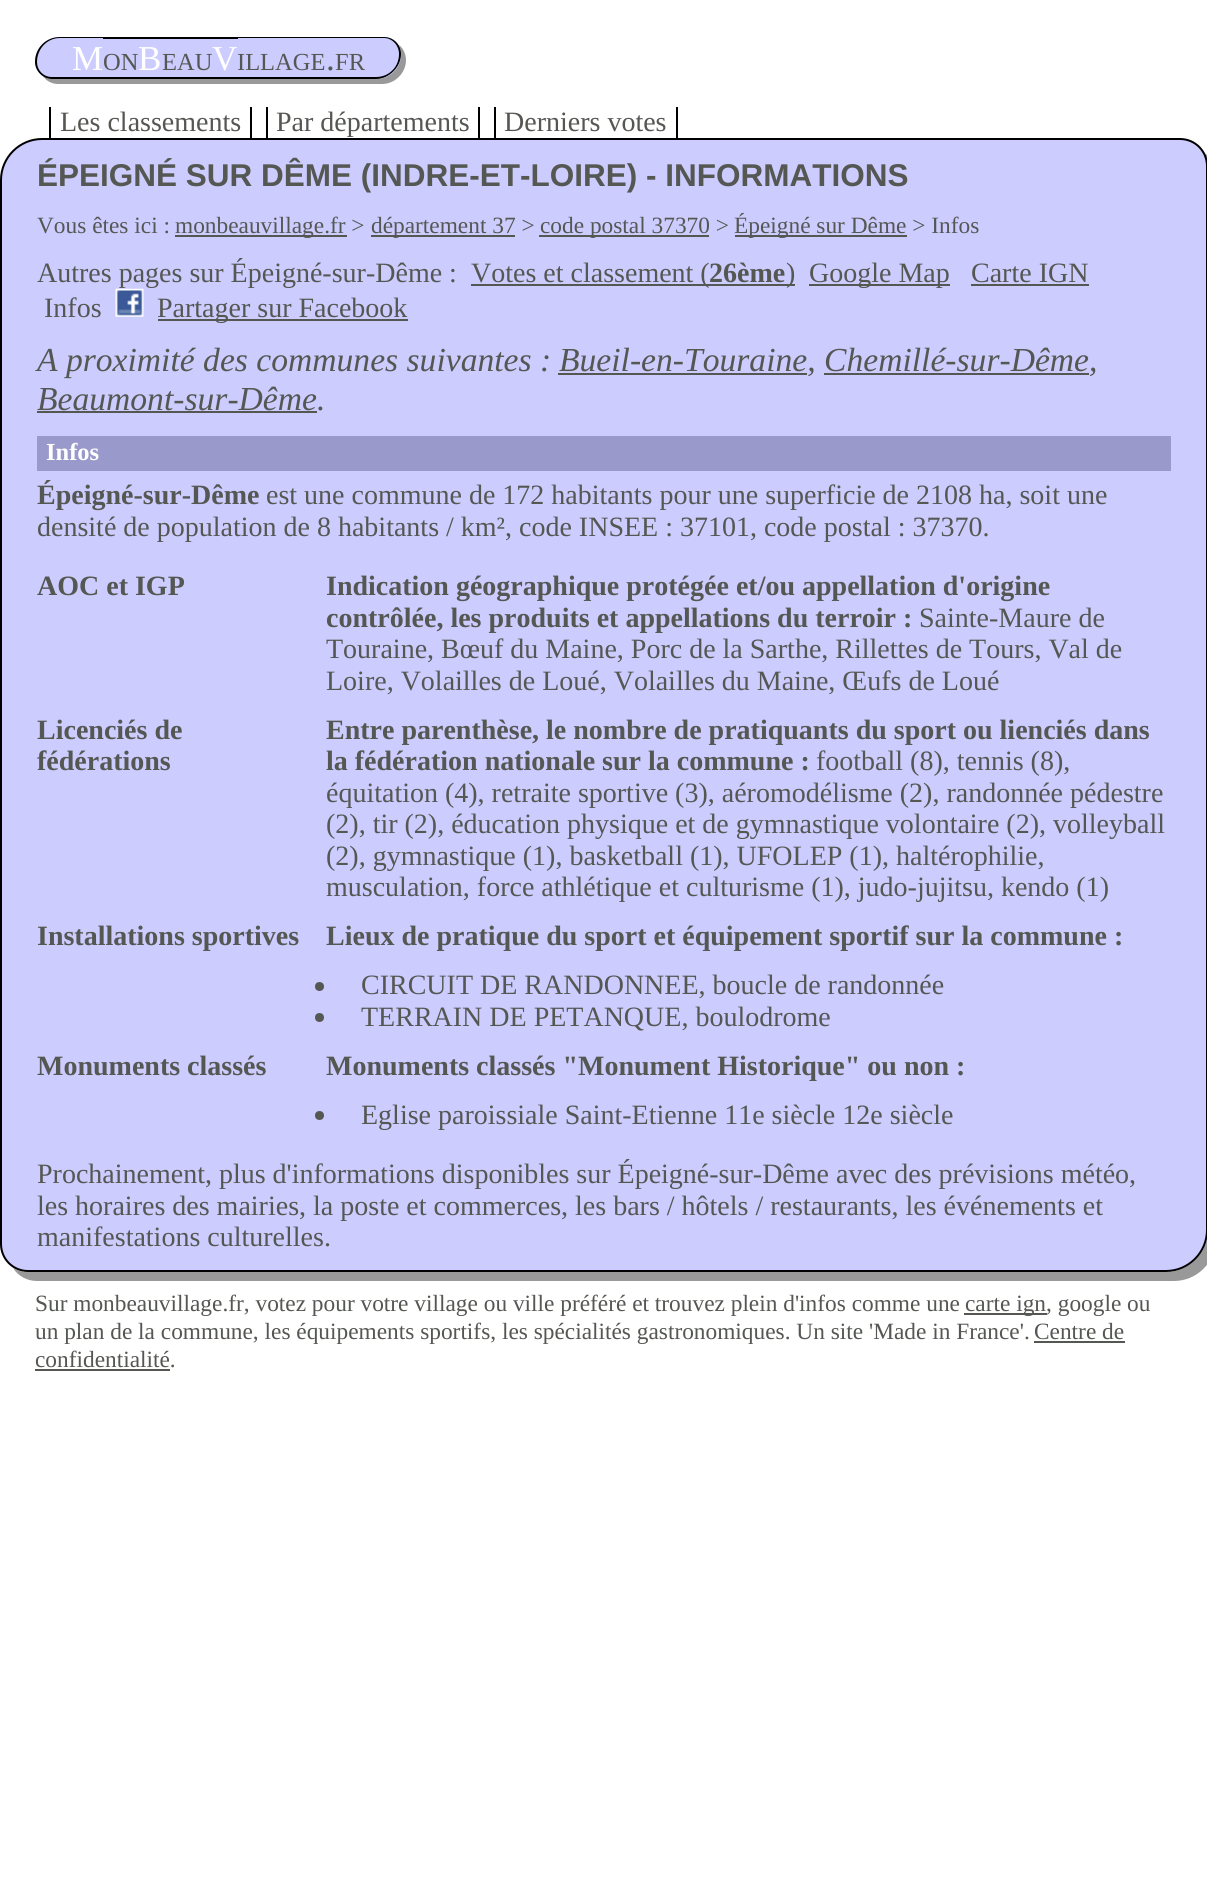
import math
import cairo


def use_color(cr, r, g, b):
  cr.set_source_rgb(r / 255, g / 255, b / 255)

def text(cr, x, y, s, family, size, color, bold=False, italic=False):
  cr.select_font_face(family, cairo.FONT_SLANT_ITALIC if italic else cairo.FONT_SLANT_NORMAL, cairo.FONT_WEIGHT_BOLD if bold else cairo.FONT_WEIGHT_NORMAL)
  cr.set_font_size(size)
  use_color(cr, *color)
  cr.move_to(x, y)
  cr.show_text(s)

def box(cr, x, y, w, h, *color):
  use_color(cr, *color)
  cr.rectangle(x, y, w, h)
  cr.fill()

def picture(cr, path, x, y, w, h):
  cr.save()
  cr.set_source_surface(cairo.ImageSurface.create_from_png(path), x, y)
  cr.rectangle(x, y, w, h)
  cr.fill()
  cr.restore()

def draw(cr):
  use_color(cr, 255, 255, 255)
  cr.paint()
  use_color(cr, 153, 153, 153)
  cr.new_path()
  cr.move_to(43, 76)
  cr.curve_to(46, 81, 52, 84, 58, 84)
  cr.line_to(109, 84)
  cr.line_to(109, 42)
  cr.line_to(103, 42)
  cr.line_to(103, 79)
  cr.line_to(52, 79)
  cr.curve_to(49, 79, 46, 78, 43, 76)
  cr.close_path()
  cr.fill()
  use_color(cr, 204, 204, 255)
  cr.new_path()
  cr.move_to(59.5, 37)
  cr.line_to(103, 37)
  cr.line_to(103, 79)
  cr.line_to(52.5, 79)
  cr.curve_to(43, 79, 35, 71, 35, 61.5)
  cr.curve_to(35, 48, 46, 37, 59.5, 37)
  cr.close_path()
  cr.fill()
  use_color(cr, 0, 0, 0)
  cr.set_fill_rule(cairo.FILL_RULE_EVEN_ODD)
  cr.new_path()
  cr.move_to(60, 37)
  cr.line_to(103, 37)
  cr.line_to(103, 79)
  cr.line_to(52, 79)
  cr.curve_to(43, 79, 35, 71, 35, 62)
  cr.curve_to(35, 48, 46, 37, 60, 37)
  cr.close_path()
  cr.move_to(60, 38)
  cr.line_to(103, 38)
  cr.line_to(103, 77)
  cr.line_to(52, 77)
  cr.curve_to(43, 77, 37, 70, 37, 62)
  cr.curve_to(37, 49, 47, 38, 60, 38)
  cr.close_path()
  cr.fill()
  use_color(cr, 153, 153, 153)
  cr.set_fill_rule(cairo.FILL_RULE_WINDING)
  cr.new_path()
  cr.move_to(109, 79)
  cr.line_to(109, 84)
  cr.line_to(144, 84)
  cr.line_to(144, 42)
  cr.line_to(138, 42)
  cr.line_to(138, 79)
  cr.close_path()
  cr.fill()
  box(cr, 103, 39, 35, 38, 204, 204, 255)
  box(cr, 103, 37, 135, 2, 0, 0, 0)
  box(cr, 103, 77, 35, 2, 0, 0, 0)
  use_color(cr, 153, 153, 153)
  cr.new_path()
  cr.move_to(144, 79)
  cr.line_to(144, 84)
  cr.line_to(166, 84)
  cr.line_to(166, 42)
  cr.line_to(161, 42)
  cr.line_to(161, 79)
  cr.close_path()
  cr.fill()
  box(cr, 138, 77, 23, 2, 0, 0, 0)
  box(cr, 138, 39, 23, 38, 204, 204, 255)
  use_color(cr, 153, 153, 153)
  cr.new_path()
  cr.move_to(166, 79)
  cr.line_to(166, 84)
  cr.line_to(217, 84)
  cr.line_to(217, 42)
  cr.line_to(212, 42)
  cr.line_to(212, 79)
  cr.close_path()
  cr.fill()
  box(cr, 161, 77, 51, 2, 0, 0, 0)
  use_color(cr, 153, 153, 153)
  cr.new_path()
  cr.move_to(217, 79)
  cr.line_to(217, 84)
  cr.line_to(243, 84)
  cr.line_to(243, 42)
  cr.line_to(238, 42)
  cr.line_to(238, 79)
  cr.close_path()
  cr.fill()
  box(cr, 212, 77, 26, 2, 0, 0, 0)
  box(cr, 161, 39, 51, 38, 204, 204, 255)
  box(cr, 212, 39, 26, 38, 204, 204, 255)
  use_color(cr, 153, 153, 153)
  cr.new_path()
  cr.move_to(243, 79)
  cr.line_to(243, 84)
  cr.line_to(382, 84)
  cr.curve_to(395, 84, 406, 73, 406, 60)
  cr.curve_to(406, 54, 403, 48, 399, 45)
  cr.curve_to(400, 48, 401, 51, 401, 54)
  cr.curve_to(401, 67, 389, 79, 376, 79)
  cr.close_path()
  cr.fill()
  use_color(cr, 204, 204, 255)
  cr.new_path()
  cr.move_to(238, 37)
  cr.line_to(383.5, 37)
  cr.curve_to(393, 37, 401, 45, 401, 54.5)
  cr.curve_to(401, 68, 390, 79, 376.5, 79)
  cr.line_to(238, 79)
  cr.close_path()
  cr.fill()
  use_color(cr, 0, 0, 0)
  cr.set_fill_rule(cairo.FILL_RULE_EVEN_ODD)
  cr.new_path()
  cr.move_to(238, 37)
  cr.line_to(384, 37)
  cr.curve_to(393, 37, 401, 44, 401, 54)
  cr.curve_to(401, 67, 389, 79, 376, 79)
  cr.line_to(238, 79)
  cr.close_path()
  cr.move_to(238, 38)
  cr.line_to(384, 38)
  cr.curve_to(392, 38, 399, 45, 399, 54)
  cr.curve_to(399, 67, 389, 77, 376, 77)
  cr.line_to(238, 77)
  cr.close_path()
  cr.fill()
  box(cr, 250, 107, 2, 31, 0, 0, 0)
  box(cr, 49, 107, 2, 31, 0, 0, 0)
  box(cr, 478, 107, 2, 31, 0, 0, 0)
  box(cr, 266, 107, 2, 31, 0, 0, 0)
  box(cr, 676, 107, 2, 31, 0, 0, 0)
  box(cr, 494, 107, 2, 31, 0, 0, 0)
  use_color(cr, 153, 153, 153)
  cr.set_fill_rule(cairo.FILL_RULE_WINDING)
  cr.new_path()
  cr.move_to(13, 1268)
  cr.curve_to(18, 1276, 27, 1281, 37, 1281)
  cr.line_to(1174, 1281)
  cr.curve_to(1197, 1281, 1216, 1262, 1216, 1239)
  cr.line_to(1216, 175)
  cr.curve_to(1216, 165, 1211, 157, 1203, 152)
  cr.curve_to(1206, 156, 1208, 161, 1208, 166)
  cr.line_to(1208, 1230)
  cr.curve_to(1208, 1253, 1189, 1272, 1166, 1272)
  cr.line_to(28, 1272)
  cr.curve_to(23, 1272, 18, 1271, 13, 1268)
  cr.close_path()
  cr.fill()
  use_color(cr, 204, 204, 255)
  cr.new_path()
  cr.move_to(42, 139)
  cr.line_to(1180, 139)
  cr.curve_to(1195, 139, 1207, 151, 1207, 166)
  cr.line_to(1207, 1230)
  cr.curve_to(1207, 1252.5, 1188.5, 1271, 1166, 1271)
  cr.line_to(28, 1271)
  cr.curve_to(13, 1271, 1, 1259, 1, 1244)
  cr.line_to(1, 180)
  cr.curve_to(1, 157.5, 19.5, 139, 42, 139)
  cr.close_path()
  cr.fill_preserve()
  use_color(cr, 0, 0, 0)
  cr.stroke()
  box(cr, 175, 235, 172, 2, 85, 87, 83)
  box(cr, 371, 235, 144, 2, 85, 87, 83)
  box(cr, 539, 235, 170, 2, 85, 87, 83)
  box(cr, 735, 235, 172, 2, 85, 87, 83)
  box(cr, 471, 284, 324, 2, 85, 87, 83)
  box(cr, 809, 284, 141, 2, 85, 87, 83)
  box(cr, 971, 284, 118, 2, 85, 87, 83)
  box(cr, 158, 319, 250, 2, 85, 87, 83)
  box(cr, 558, 373, 249, 2, 85, 87, 83)
  box(cr, 824, 373, 265, 2, 85, 87, 83)
  box(cr, 37, 411, 280, 2, 85, 87, 83)
  box(cr, 37, 436, 1134, 35, 153, 153, 204)
  use_color(cr, 85, 87, 83)
  cr.arc(319.5, 986.5, 4.5, 0, 2 * math.pi)
  cr.fill()
  cr.arc(319.5, 1017.5, 4.5, 0, 2 * math.pi)
  cr.fill()
  cr.arc(319.5, 1115.5, 4.5, 0, 2 * math.pi)
  cr.fill()
  box(cr, 964, 1313, 83, 2, 85, 87, 83)
  box(cr, 1034, 1341, 91, 2, 85, 87, 83)
  box(cr, 35, 1369, 135, 2, 85, 87, 83)
  text(cr, 72, 70, "M", "Liberation Serif", 35, (255, 255, 255))
  text(cr, 103, 70, "ON", "Liberation Serif", 24.5, (85, 87, 83))
  text(cr, 138, 70, "B", "Liberation Serif", 35, (255, 255, 255))
  text(cr, 162, 70, "EAU", "Liberation Serif", 24.5, (85, 87, 83))
  text(cr, 212, 70, "V", "Liberation Serif", 35, (255, 255, 255))
  text(cr, 237, 70, "ILLAGE", "Liberation Serif", 24.5, (85, 87, 83))
  text(cr, 326, 70, ".", "Liberation Serif", 35, (85, 87, 83))
  text(cr, 335, 70, "FR", "Liberation Serif", 24.5, (85, 87, 83))
  text(cr, 60, 131, "Les classements", "Liberation Serif", 28, (85, 87, 83))
  text(cr, 276, 131, "Par départements", "Liberation Serif", 28, (85, 87, 83))
  text(cr, 504, 131, "Derniers votes", "Liberation Serif", 28, (85, 87, 83))
  text(cr, 37, 186, "ÉPEIGNÉ SUR DÊME (INDRE-ET-LOIRE) - INFORMATIONS", "Liberation Sans", 31.5, (85, 87, 83), bold=True)
  text(cr, 37, 233, "Vous êtes ici :", "Liberation Serif", 23.35, (85, 87, 83))
  text(cr, 175, 233, "monbeauvillage.fr >", "Liberation Serif", 23.35, (85, 87, 83))
  text(cr, 371, 233, "département 37 >", "Liberation Serif", 23.35, (85, 87, 83))
  text(cr, 540, 233, "code postal 37370 >", "Liberation Serif", 23.35, (85, 87, 83))
  text(cr, 734, 233, "Épeigné sur Dême > Infos", "Liberation Serif", 23.35, (85, 87, 83))
  text(cr, 37, 282, "Autres pages sur Épeigné-sur-Dême :", "Liberation Serif", 28, (85, 87, 83))
  text(cr, 471, 282, "Votes et classement (", "Liberation Serif", 28, (85, 87, 83))
  text(cr, 709, 282, "26ème", "Liberation Serif", 28, (85, 87, 83), bold=True)
  text(cr, 786, 282, ")", "Liberation Serif", 28, (85, 87, 83))
  text(cr, 809, 282, "Google Map", "Liberation Serif", 28, (85, 87, 83))
  text(cr, 971, 282, "Carte IGN", "Liberation Serif", 28, (85, 87, 83))
  text(cr, 44, 317, "Infos", "Liberation Serif", 28, (85, 87, 83))
  picture(cr, "img_01.png", 115, 288, 29, 29)
  text(cr, 157, 317, "Partager sur Facebook", "Liberation Serif", 28, (85, 87, 83))
  text(cr, 37, 371, "A proximité des communes suivantes :", "Liberation Serif", 33.6, (85, 87, 83), italic=True)
  text(cr, 559, 371, "Bueil-en-Touraine, Chemillé-sur-Dême,", "Liberation Serif", 33.6, (85, 87, 83), italic=True)
  text(cr, 37, 410, "Beaumont-sur-Dême.", "Liberation Serif", 33.6, (85, 87, 83), italic=True)
  text(cr, 46, 460, "Infos", "Liberation Serif", 24.5, (255, 255, 255), bold=True)
  text(cr, 37, 504, "Épeigné-sur-Dême", "Liberation Serif", 28, (85, 87, 83), bold=True)
  text(cr, 266, 504, "est une commune de 172 habitants pour une superficie de 2108 ha, soit une", "Liberation Serif", 28, (85, 87, 83))
  text(cr, 37, 536, "densité de population de 8 habitants / km², code INSEE : 37101, code postal : 37370.", "Liberation Serif", 28, (85, 87, 83))
  text(cr, 37, 595, "AOC et IGP", "Liberation Serif", 28, (85, 87, 83), bold=True)
  text(cr, 326, 595, "Indication géographique protégée et/ou appellation d'origine", "Liberation Serif", 28, (85, 87, 83), bold=True)
  text(cr, 326, 627, "contrôlée, les produits et appellations du terroir :", "Liberation Serif", 28, (85, 87, 83), bold=True)
  text(cr, 919, 627, "Sainte-Maure de", "Liberation Serif", 28, (85, 87, 83))
  text(cr, 326, 658, "Touraine, Bœuf du Maine, Porc de la Sarthe, Rillettes de Tours, Val de", "Liberation Serif", 28, (85, 87, 83))
  text(cr, 326, 690, "Loire, Volailles de Loué, Volailles du Maine, Œufs de Loué", "Liberation Serif", 28, (85, 87, 83))
  text(cr, 37, 739, "Licenciés de", "Liberation Serif", 28, (85, 87, 83), bold=True)
  text(cr, 37, 770, "fédérations", "Liberation Serif", 28, (85, 87, 83), bold=True)
  text(cr, 326, 739, "Entre parenthèse, le nombre de pratiquants du sport ou lienciés dans", "Liberation Serif", 28, (85, 87, 83), bold=True)
  text(cr, 326, 770, "la fédération nationale sur la commune :", "Liberation Serif", 28, (85, 87, 83), bold=True)
  text(cr, 816, 770, "football (8), tennis (8),", "Liberation Serif", 28, (85, 87, 83))
  text(cr, 326, 802, "équitation (4), retraite sportive (3), aéromodélisme (2), randonnée pédestre", "Liberation Serif", 28, (85, 87, 83))
  text(cr, 326, 833, "(2), tir (2), éducation physique et de gymnastique volontaire (2), volleyball", "Liberation Serif", 28, (85, 87, 83))
  text(cr, 326, 865, "(2), gymnastique (1), basketball (1), UFOLEP (1), haltérophilie,", "Liberation Serif", 28, (85, 87, 83))
  text(cr, 326, 896, "musculation, force athlétique et culturisme (1), judo-jujitsu, kendo (1)", "Liberation Serif", 28, (85, 87, 83))
  text(cr, 37, 945, "Installations sportives", "Liberation Serif", 28, (85, 87, 83), bold=True)
  text(cr, 326, 945, "Lieux de pratique du sport et équipement sportif sur la commune :", "Liberation Serif", 28, (85, 87, 83), bold=True)
  text(cr, 361, 994, "CIRCUIT DE RANDONNEE, boucle de randonnée", "Liberation Serif", 28, (85, 87, 83))
  text(cr, 361, 1026, "TERRAIN DE PETANQUE, boulodrome", "Liberation Serif", 28, (85, 87, 83))
  text(cr, 37, 1075, "Monuments classés", "Liberation Serif", 28, (85, 87, 83), bold=True)
  text(cr, 326, 1075, "Monuments classés \"Monument Historique\" ou non :", "Liberation Serif", 28, (85, 87, 83), bold=True)
  text(cr, 361, 1124, "Eglise paroissiale Saint-Etienne 11e siècle 12e siècle", "Liberation Serif", 28, (85, 87, 83))
  text(cr, 37, 1183, "Prochainement, plus d'informations disponibles sur Épeigné-sur-Dême avec des prévisions météo,", "Liberation Serif", 28, (85, 87, 83))
  text(cr, 37, 1215, "les horaires des mairies, la poste et commerces, les bars / hôtels / restaurants, les événements et", "Liberation Serif", 28, (85, 87, 83))
  text(cr, 37, 1246, "manifestations culturelles.", "Liberation Serif", 28, (85, 87, 83))
  text(cr, 35, 1311, "Sur monbeauvillage.fr, votez pour votre village ou ville préféré et trouvez plein d'infos comme une", "Liberation Serif", 23.35, (85, 87, 83))
  text(cr, 965, 1311, "carte ign, google ou", "Liberation Serif", 23.35, (85, 87, 83))
  text(cr, 35, 1339, "un plan de la commune, les équipements sportifs, les spécialités gastronomiques. Un site 'Made in France'.", "Liberation Serif", 23.35, (85, 87, 83))
  text(cr, 1034, 1339, "Centre de", "Liberation Serif", 23.35, (85, 87, 83))
  text(cr, 35, 1367, "confidentialité.", "Liberation Serif", 23.35, (85, 87, 83))


surface = cairo.ImageSurface(cairo.FORMAT_RGB24, 1207, 1893)
cr = cairo.Context(surface)
options = cairo.FontOptions()
options.set_hint_metrics(cairo.HINT_METRICS_OFF)
options.set_hint_style(cairo.HINT_STYLE_NONE)
cr.set_font_options(options)
cr.set_miter_limit(4)
draw(cr)
surface.write_to_png("out.png")
